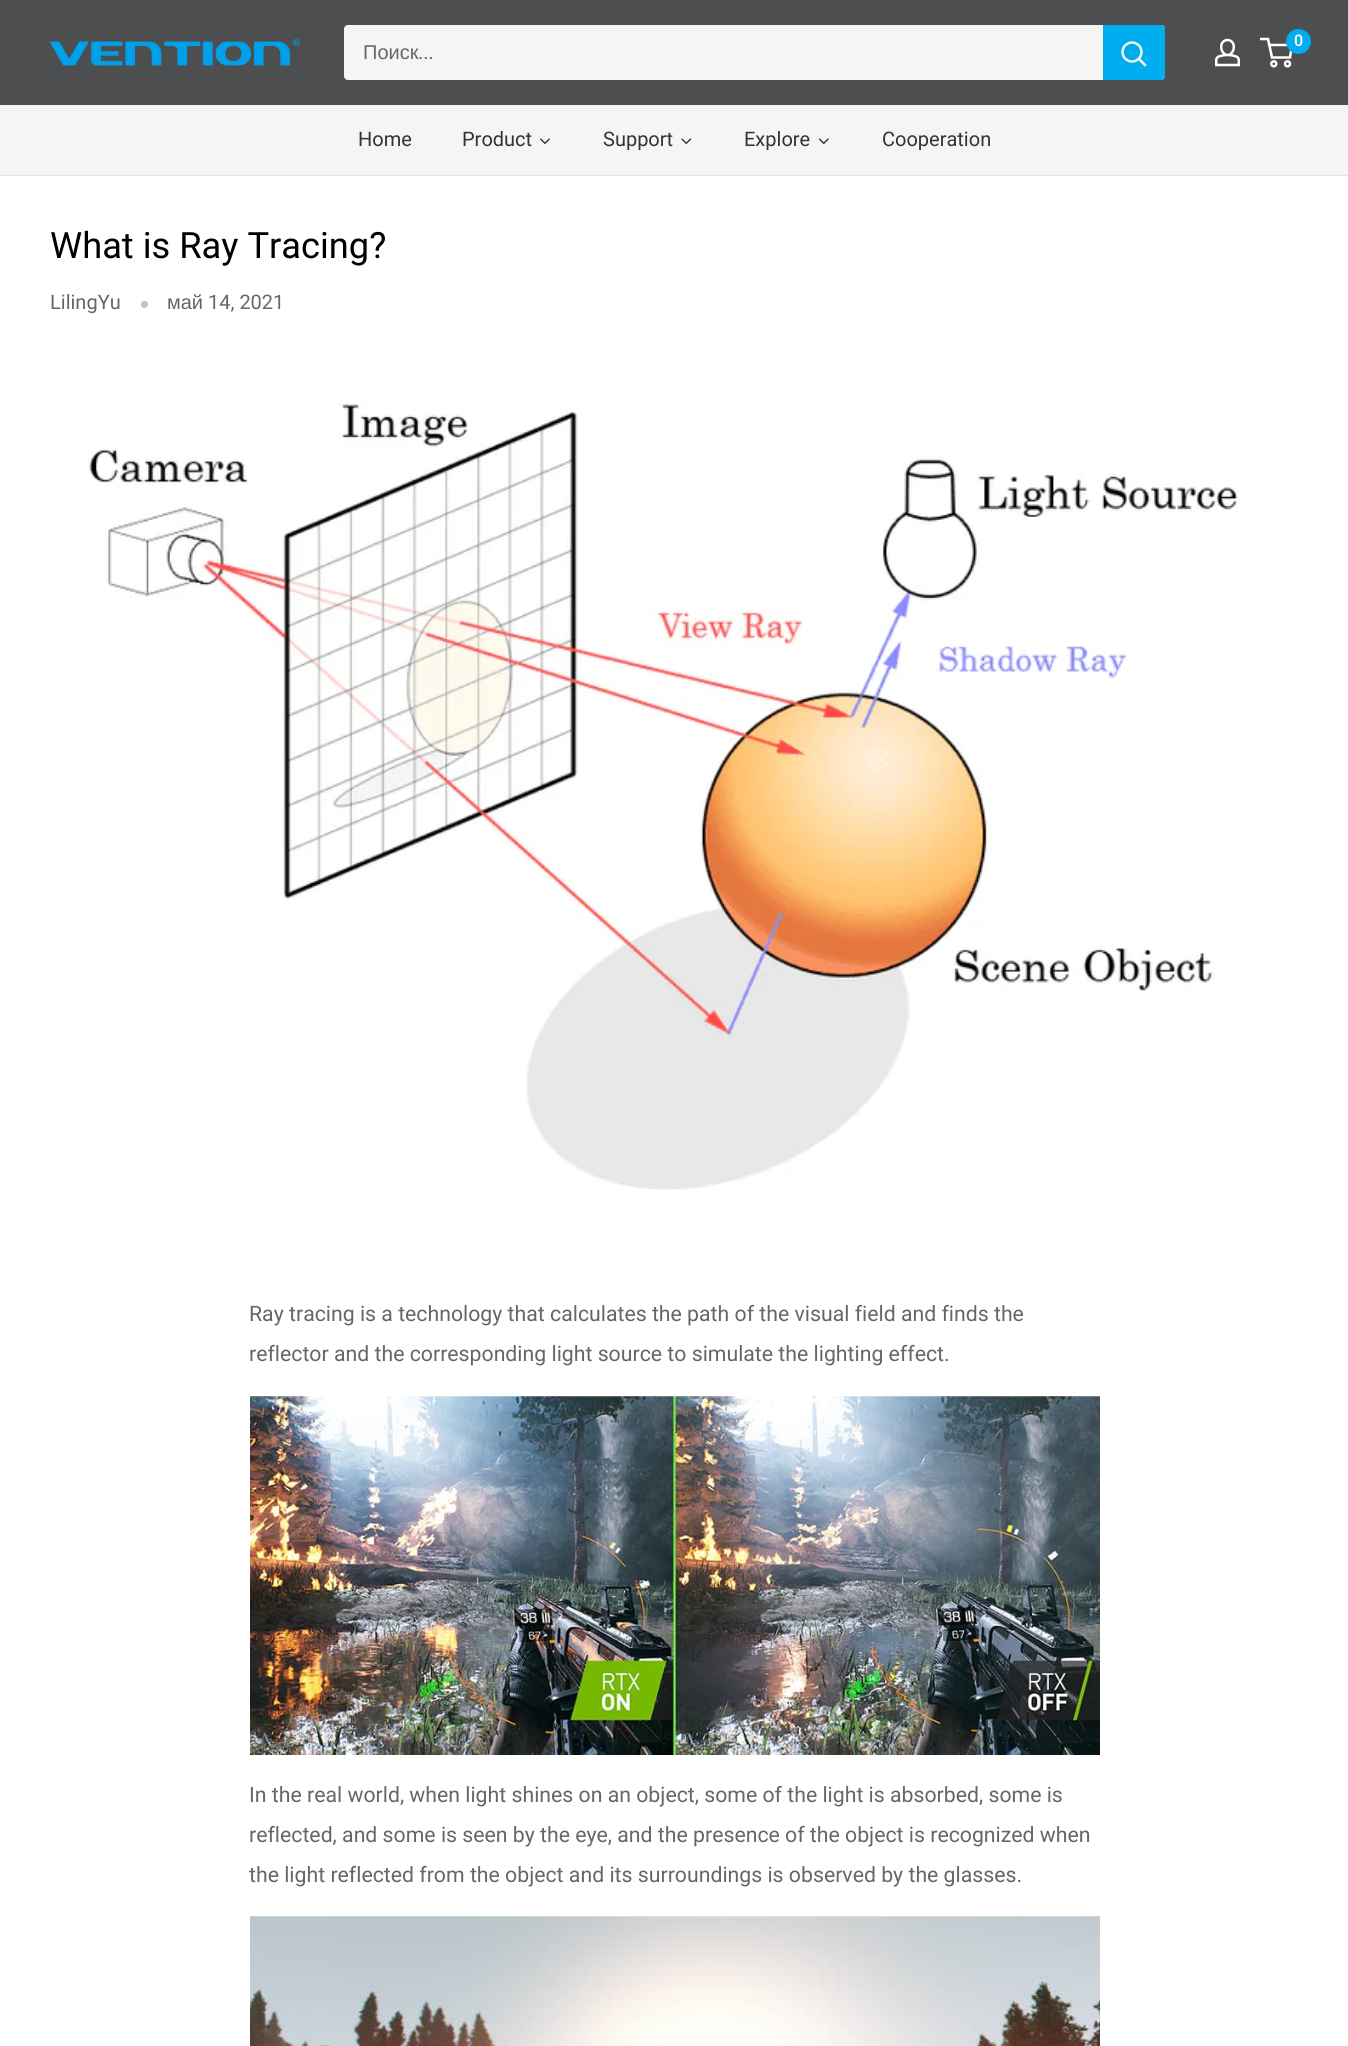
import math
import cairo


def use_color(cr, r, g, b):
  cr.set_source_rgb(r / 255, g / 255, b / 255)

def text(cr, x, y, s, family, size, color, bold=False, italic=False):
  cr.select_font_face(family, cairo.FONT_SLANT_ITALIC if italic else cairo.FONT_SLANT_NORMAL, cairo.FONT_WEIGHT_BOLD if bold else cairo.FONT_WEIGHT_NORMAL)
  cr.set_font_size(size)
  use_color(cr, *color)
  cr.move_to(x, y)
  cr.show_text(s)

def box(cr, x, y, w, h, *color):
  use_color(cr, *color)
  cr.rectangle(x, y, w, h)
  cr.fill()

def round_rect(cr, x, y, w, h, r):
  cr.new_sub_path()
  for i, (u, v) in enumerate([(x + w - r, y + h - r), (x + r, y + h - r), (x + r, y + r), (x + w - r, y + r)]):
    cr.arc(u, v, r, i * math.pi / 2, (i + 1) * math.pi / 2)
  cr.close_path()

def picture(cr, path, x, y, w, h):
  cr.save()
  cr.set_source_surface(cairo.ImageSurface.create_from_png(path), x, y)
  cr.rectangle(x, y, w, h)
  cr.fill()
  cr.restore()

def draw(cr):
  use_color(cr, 255, 255, 255)
  cr.paint()
  box(cr, 0, 0, 1348, 105, 77, 78, 80)
  picture(cr, "img_01.png", 50, 38, 250, 28)
  use_color(cr, 245, 245, 245)
  round_rect(cr, 344, 25, 821, 55, 4)
  cr.fill()
  use_color(cr, 0, 173, 239)
  cr.new_path()
  cr.move_to(1103, 25)
  cr.line_to(1161, 25)
  cr.curve_to(1163, 25, 1165, 27, 1165, 29)
  cr.line_to(1165, 76)
  cr.curve_to(1165, 78, 1163, 80, 1161, 80)
  cr.line_to(1103, 80)
  cr.close_path()
  cr.fill()
  cr.new_path()
  cr.move_to(1145, 65)
  cr.line_to(1139, 59)
  use_color(cr, 245, 245, 245)
  cr.set_line_width(2.5)
  cr.set_line_cap(cairo.LINE_CAP_SQUARE)
  cr.stroke()
  cr.arc(1132, 52, 9.5, 0, 2 * math.pi)
  cr.set_line_cap(cairo.LINE_CAP_BUTT)
  cr.stroke()
  picture(cr, "img_02.png", 1215, 38, 25, 29)
  cr.arc(1273.8, 63.8, 2.5, 0, 2 * math.pi)
  use_color(cr, 255, 255, 255)
  cr.stroke()
  cr.arc(1287.5, 63.8, 2.5, 0, 2 * math.pi)
  cr.stroke()
  cr.new_path()
  cr.move_to(1269, 45)
  cr.line_to(1292, 45)
  cr.line_to(1290, 57.5)
  cr.line_to(1272, 57.5)
  cr.line_to(1268, 39)
  cr.line_to(1260, 39)
  cr.stroke()
  use_color(cr, 0, 173, 239)
  cr.arc(1298.5, 41.5, 12.5, 0, 2 * math.pi)
  cr.fill()
  box(cr, 0, 105, 1348, 70, 245, 245, 245)
  box(cr, 0, 175, 1348, 1, 225, 227, 228)
  picture(cr, "img_03.png", 540, 138, 10, 6)
  picture(cr, "img_04.png", 681, 138, 11, 6)
  picture(cr, "img_05.png", 818, 138, 11, 6)
  use_color(cr, 194, 194, 194)
  cr.arc(144.5, 304.5, 3.5, 0, 2 * math.pi)
  cr.fill()
  picture(cr, "img_06.png", 87, 402, 1151, 788)
  picture(cr, "img_07.png", 250, 1396, 850, 359)
  picture(cr, "img_08.png", 250, 1916, 850, 130)
  text(cr, 363, 59, "Поиск", "Liberation Sans", 20, (102, 102, 102))
  text(cr, 418, 59, "...", "Roboto", 20, (102, 102, 102))
  text(cr, 1294, 46, "0", "Roboto SemiBold", 16, (245, 245, 245))
  text(cr, 358, 146, "Home", "Roboto", 20, (51, 51, 51))
  text(cr, 462, 146, "Product", "Roboto", 20, (51, 51, 51))
  text(cr, 603, 146, "Support", "Roboto", 20, (51, 51, 51))
  text(cr, 744, 146, "Explore", "Roboto", 20, (51, 51, 51))
  text(cr, 882, 146, "Cooperation", "Roboto", 20, (51, 51, 51))
  text(cr, 50, 258, "What is Ray Tracing?", "Roboto", 36.25, (0, 0, 0))
  text(cr, 50, 309, "LilingYu", "Roboto", 20, (102, 102, 102))
  text(cr, 167, 309, "май", "Liberation Sans", 20, (102, 102, 102))
  text(cr, 208, 309, "14, 2021", "Roboto", 20, (102, 102, 102))
  text(cr, 249, 1321, "Ray tracing is a technology that calculates the path of the visual field and finds the", "Roboto", 21.25, (102, 102, 102))
  text(cr, 249, 1361, "reflector and the corresponding light source to simulate the lighting effect.", "Roboto", 21.25, (102, 102, 102))
  text(cr, 249, 1802, "In the real world, when light shines on an object, some of the light is absorbed, some is", "Roboto", 21.25, (102, 102, 102))
  text(cr, 249, 1842, "reflected, and some is seen by the eye, and the presence of the object is recognized when", "Roboto", 21.25, (102, 102, 102))
  text(cr, 249, 1882, "the light reflected from the object and its surroundings is observed by the glasses.", "Roboto", 21.25, (102, 102, 102))


surface = cairo.ImageSurface(cairo.FORMAT_RGB24, 1348, 2046)
cr = cairo.Context(surface)
options = cairo.FontOptions()
options.set_hint_metrics(cairo.HINT_METRICS_OFF)
options.set_hint_style(cairo.HINT_STYLE_NONE)
cr.set_font_options(options)
cr.set_miter_limit(4)
draw(cr)
surface.write_to_png("out.png")
